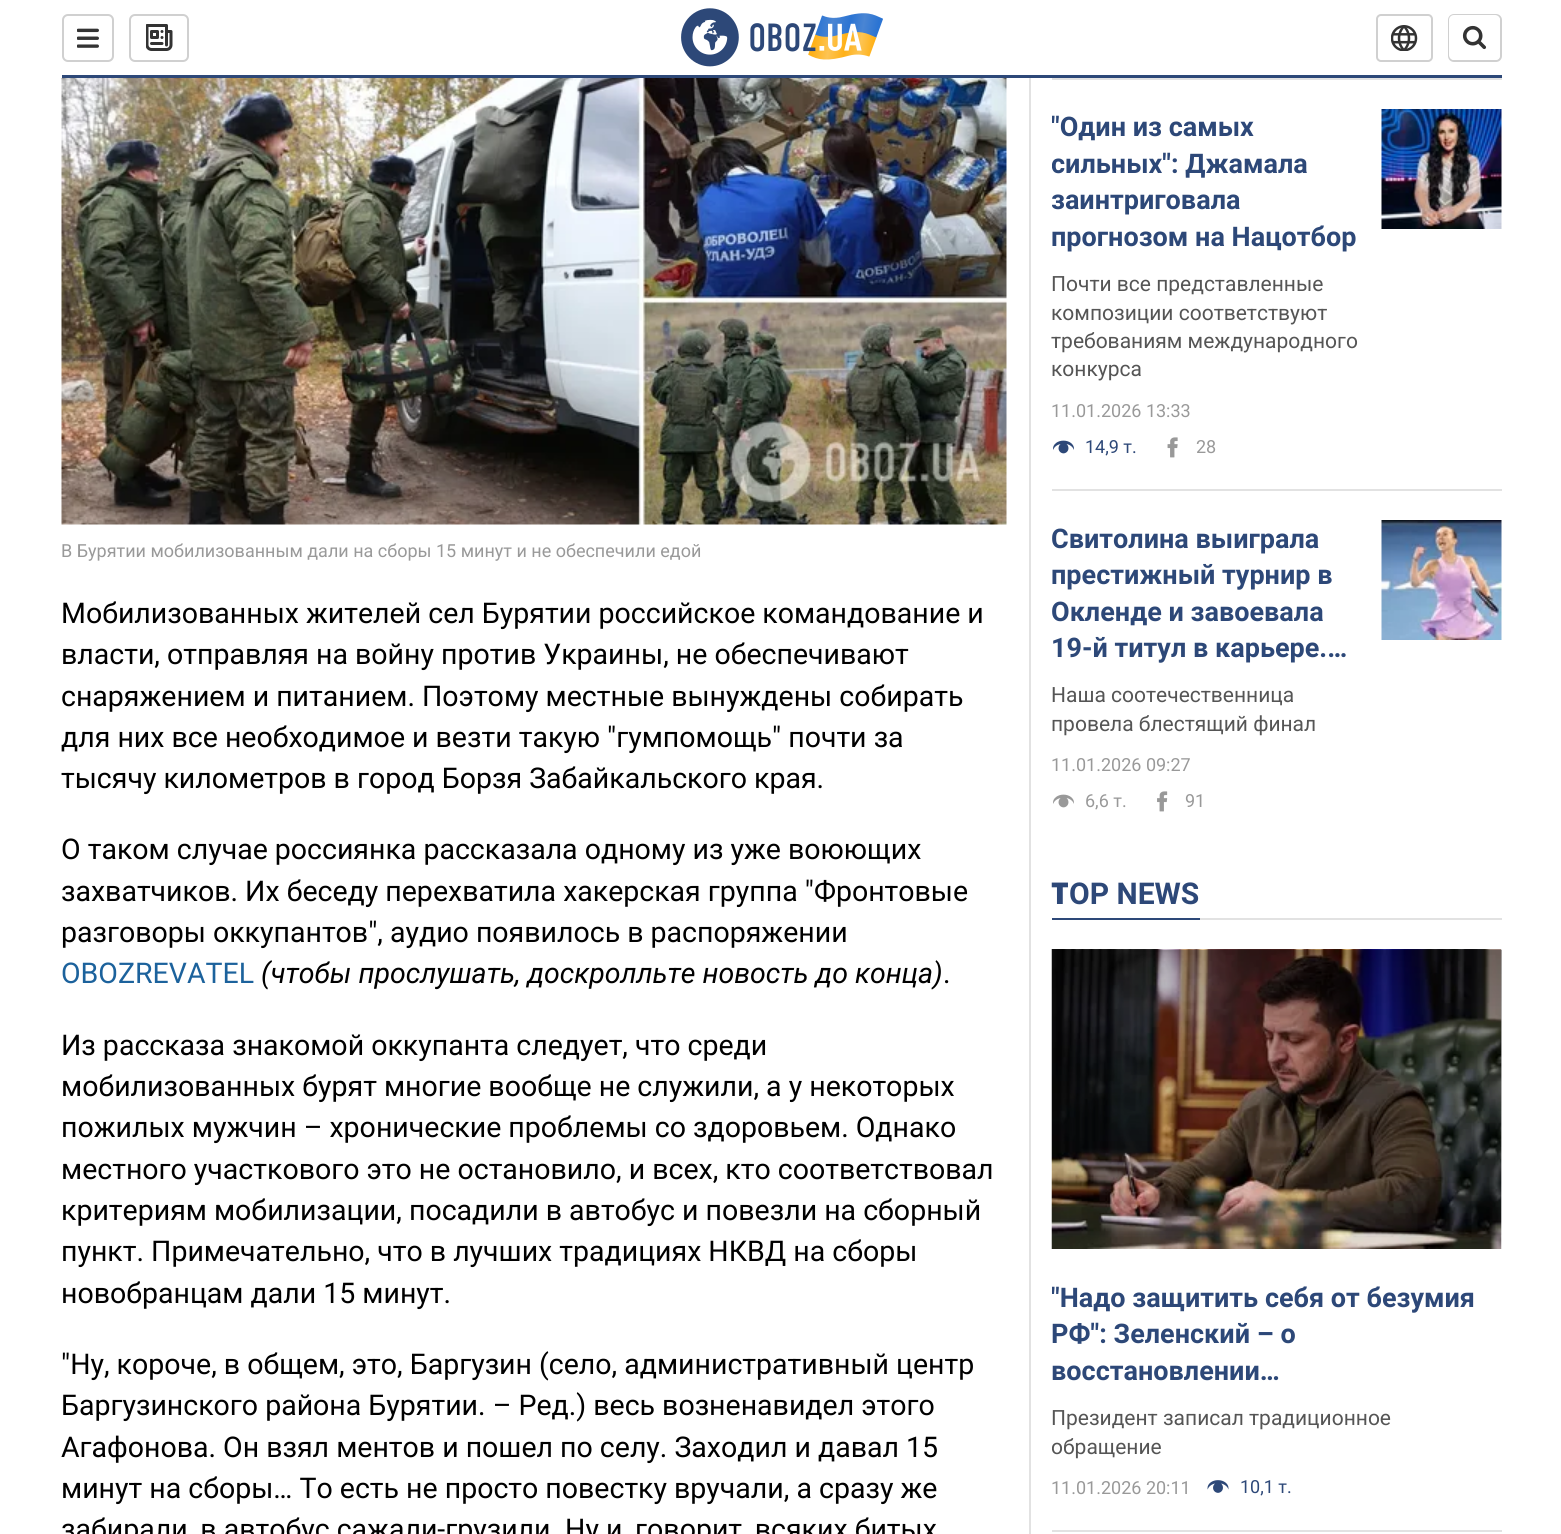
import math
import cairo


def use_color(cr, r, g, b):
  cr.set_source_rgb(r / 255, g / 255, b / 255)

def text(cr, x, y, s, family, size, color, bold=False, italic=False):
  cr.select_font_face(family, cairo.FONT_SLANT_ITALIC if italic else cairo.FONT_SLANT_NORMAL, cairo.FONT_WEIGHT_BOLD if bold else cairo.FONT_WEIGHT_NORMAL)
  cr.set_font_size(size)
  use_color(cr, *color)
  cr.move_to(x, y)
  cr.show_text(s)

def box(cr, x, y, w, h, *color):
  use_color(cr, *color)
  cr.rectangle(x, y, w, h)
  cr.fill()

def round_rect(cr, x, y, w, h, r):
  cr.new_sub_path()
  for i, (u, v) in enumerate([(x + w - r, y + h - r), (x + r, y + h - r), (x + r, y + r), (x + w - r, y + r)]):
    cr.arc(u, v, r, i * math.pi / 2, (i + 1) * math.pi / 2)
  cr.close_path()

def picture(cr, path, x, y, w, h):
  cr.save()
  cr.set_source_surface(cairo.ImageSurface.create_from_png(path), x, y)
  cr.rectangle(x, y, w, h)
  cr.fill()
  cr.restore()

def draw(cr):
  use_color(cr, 255, 255, 255)
  cr.paint()
  box(cr, 62, 75, 1440, 3, 45, 72, 120)
  round_rect(cr, 63, 15, 50, 46, 5)
  use_color(cr, 208, 208, 208)
  cr.stroke()
  picture(cr, "img_01.png", 77, 28, 22, 20)
  round_rect(cr, 130, 15, 58, 46, 5)
  cr.stroke()
  picture(cr, "img_02.png", 146, 24, 27, 27)
  picture(cr, "img_03.png", 681, 8, 202, 59)
  round_rect(cr, 1377, 15, 55, 46, 4)
  cr.stroke()
  picture(cr, "img_04.png", 1391, 25, 27, 26)
  round_rect(cr, 1449, 15, 52, 46, 5)
  cr.stroke()
  use_color(cr, 255, 255, 255)
  round_rect(cr, 1449, 15, 51, 45, 5)
  cr.fill()
  picture(cr, "img_05.png", 1462, 25, 25, 25)
  picture(cr, "img_06.png", 61, 78, 946, 447)
  box(cr, 1029, 78, 2, 1456, 226, 226, 226)
  box(cr, 1052, 78, 450, 2, 226, 226, 226)
  box(cr, 1052, 489, 450, 2, 226, 226, 226)
  picture(cr, "img_07.png", 1053, 440, 21, 14)
  picture(cr, "img_08.png", 1167, 437, 11, 21)
  picture(cr, "img_09.png", 1381, 109, 121, 120)
  picture(cr, "img_10.png", 1053, 794, 21, 14)
  picture(cr, "img_11.png", 1157, 791, 11, 21)
  picture(cr, "img_12.png", 1381, 520, 121, 120)
  box(cr, 1200, 918, 302, 2, 226, 226, 226)
  box(cr, 1052, 918, 148, 2, 45, 72, 120)
  box(cr, 1052, 1530, 450, 2, 226, 226, 226)
  picture(cr, "img_13.png", 1051, 949, 451, 300)
  gradient = cairo.LinearGradient(1277, 950, 1277, 1257)
  gradient.add_color_stop_rgba(0, 0, 0, 0, 0.3)
  gradient.add_color_stop_rgba(1, 0, 0, 0, 0)
  cr.set_source(gradient)
  cr.rectangle(1052, 950, 450, 285)
  cr.fill()
  picture(cr, "img_14.png", 1207, 1480, 22, 13)
  text(cr, 61, 557, "В Бурятии мобилизованным дали на сборы 15 минут и не обеспечили едой", "Roboto", 18, (153, 153, 153))
  text(cr, 61, 623, "Мобилизованных жителей сел Бурятии российское командование и", "Roboto", 28.5, (0, 0, 0))
  text(cr, 61, 664, "власти, отправляя на войну против Украины, не обеспечивают", "Roboto", 28.5, (0, 0, 0))
  text(cr, 61, 706, "снаряжением и питанием. Поэтому местные вынуждены собирать", "Roboto", 28.5, (0, 0, 0))
  text(cr, 61, 747, "для них все необходимое и везти такую \"гумпомощь\" почти за", "Roboto", 28.5, (0, 0, 0))
  text(cr, 61, 788, "тысячу километров в город Борзя Забайкальского края.", "Roboto", 28.5, (0, 0, 0))
  text(cr, 61, 859, "О таком случае россиянка рассказала одному из уже воюющих", "Roboto", 28.5, (0, 0, 0))
  text(cr, 61, 901, "захватчиков. Их беседу перехватила хакерская группа \"Фронтовые", "Roboto", 28.5, (0, 0, 0))
  text(cr, 61, 942, "разговоры оккупантов\", аудио появилось в распоряжении", "Roboto", 28.5, (0, 0, 0))
  text(cr, 61, 983, "OBOZREVATEL", "Roboto", 28.5, (28, 98, 156))
  text(cr, 261, 983, "(чтобы прослушать, доскролльте новость до конца)", "Roboto", 28.5, (0, 0, 0), italic=True)
  text(cr, 943, 983, ".", "Roboto", 28.5, (0, 0, 0))
  text(cr, 61, 1055, "Из рассказа знакомой оккупанта следует, что среди", "Roboto", 28.5, (0, 0, 0))
  text(cr, 61, 1096, "мобилизованных бурят многие вообще не служили, а у некоторых", "Roboto", 28.5, (0, 0, 0))
  text(cr, 61, 1137, "пожилых мужчин – хронические проблемы со здоровьем. Однако", "Roboto", 28.5, (0, 0, 0))
  text(cr, 61, 1179, "местного участкового это не остановило, и всех, кто соответствовал", "Roboto", 28.5, (0, 0, 0))
  text(cr, 61, 1220, "критериям мобилизации, посадили в автобус и повезли на сборный", "Roboto", 28.5, (0, 0, 0))
  text(cr, 61, 1261, "пункт. Примечательно, что в лучших традициях НКВД на сборы", "Roboto", 28.5, (0, 0, 0))
  text(cr, 61, 1303, "новобранцам дали 15 минут.", "Roboto", 28.5, (0, 0, 0))
  text(cr, 61, 1374, "\"Ну, короче, в общем, это, Баргузин (село, административный центр", "Roboto", 28.5, (0, 0, 0))
  text(cr, 61, 1415, "Баргузинского района Бурятии. – Ред.) весь возненавидел этого", "Roboto", 28.5, (0, 0, 0))
  text(cr, 61, 1457, "Агафонова. Он взял ментов и пошел по селу. Заходил и давал 15", "Roboto", 28.5, (0, 0, 0))
  text(cr, 61, 1498, "минут на сборы… То есть не просто повестку вручали, а сразу же", "Roboto", 28.5, (0, 0, 0))
  text(cr, 61, 1539, "забирали, в автобус сажали-грузили. Ну и, говорит, всяких битых", "Roboto", 28.5, (0, 0, 0))
  cr.save()
  cr.rectangle(1052, 110, 307, 145)
  cr.clip()
  text(cr, 1051, 136, "\"Один из самых", "Roboto", 27, (45, 72, 120), bold=True)
  text(cr, 1051, 173, "сильных\": Джамала", "Roboto", 27, (45, 72, 120), bold=True)
  text(cr, 1051, 209, "заинтриговала", "Roboto", 27, (45, 72, 120), bold=True)
  cr.restore()
  text(cr, 1051, 246, "прогнозом на Нацотбор", "Roboto", 27, (45, 72, 120), bold=True)
  text(cr, 1051, 291, "Почти все представленные", "Roboto", 21, (85, 85, 85))
  text(cr, 1051, 320, "композиции соответствуют", "Roboto", 21, (85, 85, 85))
  text(cr, 1051, 348, "требованиям международного", "Roboto", 21, (85, 85, 85))
  text(cr, 1051, 376, "конкурса", "Roboto", 21, (85, 85, 85))
  text(cr, 1051, 417, "11.01.2026 13:33", "Roboto", 18, (153, 153, 153))
  text(cr, 1085, 453, "14,9 т.", "Roboto", 18, (45, 72, 120))
  text(cr, 1196, 453, "28", "Roboto", 18, (153, 153, 153))
  cr.save()
  cr.rectangle(1052, 521, 307, 145)
  cr.clip()
  text(cr, 1051, 548, "Свитолина выиграла", "Roboto", 27, (45, 72, 120), bold=True)
  cr.restore()
  text(cr, 1051, 584, "престижный турнир в", "Roboto", 27, (45, 72, 120), bold=True)
  cr.save()
  cr.rectangle(1052, 521, 307, 145)
  cr.clip()
  text(cr, 1051, 621, "Окленде и завоевала", "Roboto", 27, (45, 72, 120), bold=True)
  cr.restore()
  text(cr, 1051, 657, "19-й титул в карьере.…", "Roboto", 27, (45, 72, 120), bold=True)
  text(cr, 1051, 702, "Наша соотечественница", "Roboto", 21, (85, 85, 85))
  text(cr, 1051, 731, "провела блестящий финал", "Roboto", 21, (85, 85, 85))
  text(cr, 1051, 771, "11.01.2026 09:27", "Roboto", 18, (153, 153, 153))
  text(cr, 1085, 807, "6,6 т.", "Roboto", 18, (153, 153, 153))
  text(cr, 1185, 807, "91", "Roboto", 18, (153, 153, 153))
  text(cr, 1051, 904, "T", "Noto Sans Black", 30, (45, 72, 120))
  text(cr, 1069, 904, "OP NEWS", "Roboto", 30, (45, 72, 120), bold=True)
  cr.save()
  cr.rectangle(1052, 1280, 450, 109)
  cr.clip()
  text(cr, 1051, 1307, "\"Надо защитить себя от безумия", "Roboto", 27, (45, 72, 120), bold=True)
  cr.restore()
  text(cr, 1051, 1343, "РФ\": Зеленский – о", "Roboto", 27, (45, 72, 120), bold=True)
  text(cr, 1051, 1380, "восстановлении…", "Roboto", 27, (45, 72, 120), bold=True)
  text(cr, 1051, 1425, "Президент записал традиционное", "Roboto", 21, (85, 85, 85))
  cr.save()
  cr.rectangle(1052, 1404, 450, 57)
  cr.clip()
  text(cr, 1051, 1454, "обращение", "Roboto", 21, (85, 85, 85))
  cr.restore()
  text(cr, 1051, 1494, "11.01.2026 20:11", "Roboto", 18, (153, 153, 153))
  text(cr, 1240, 1493, "10,1 т.", "Roboto", 18, (45, 72, 120))


surface = cairo.ImageSurface(cairo.FORMAT_RGB24, 1561, 1534)
cr = cairo.Context(surface)
options = cairo.FontOptions()
options.set_hint_metrics(cairo.HINT_METRICS_OFF)
options.set_hint_style(cairo.HINT_STYLE_NONE)
cr.set_font_options(options)
cr.set_miter_limit(4)
draw(cr)
surface.write_to_png("out.png")
